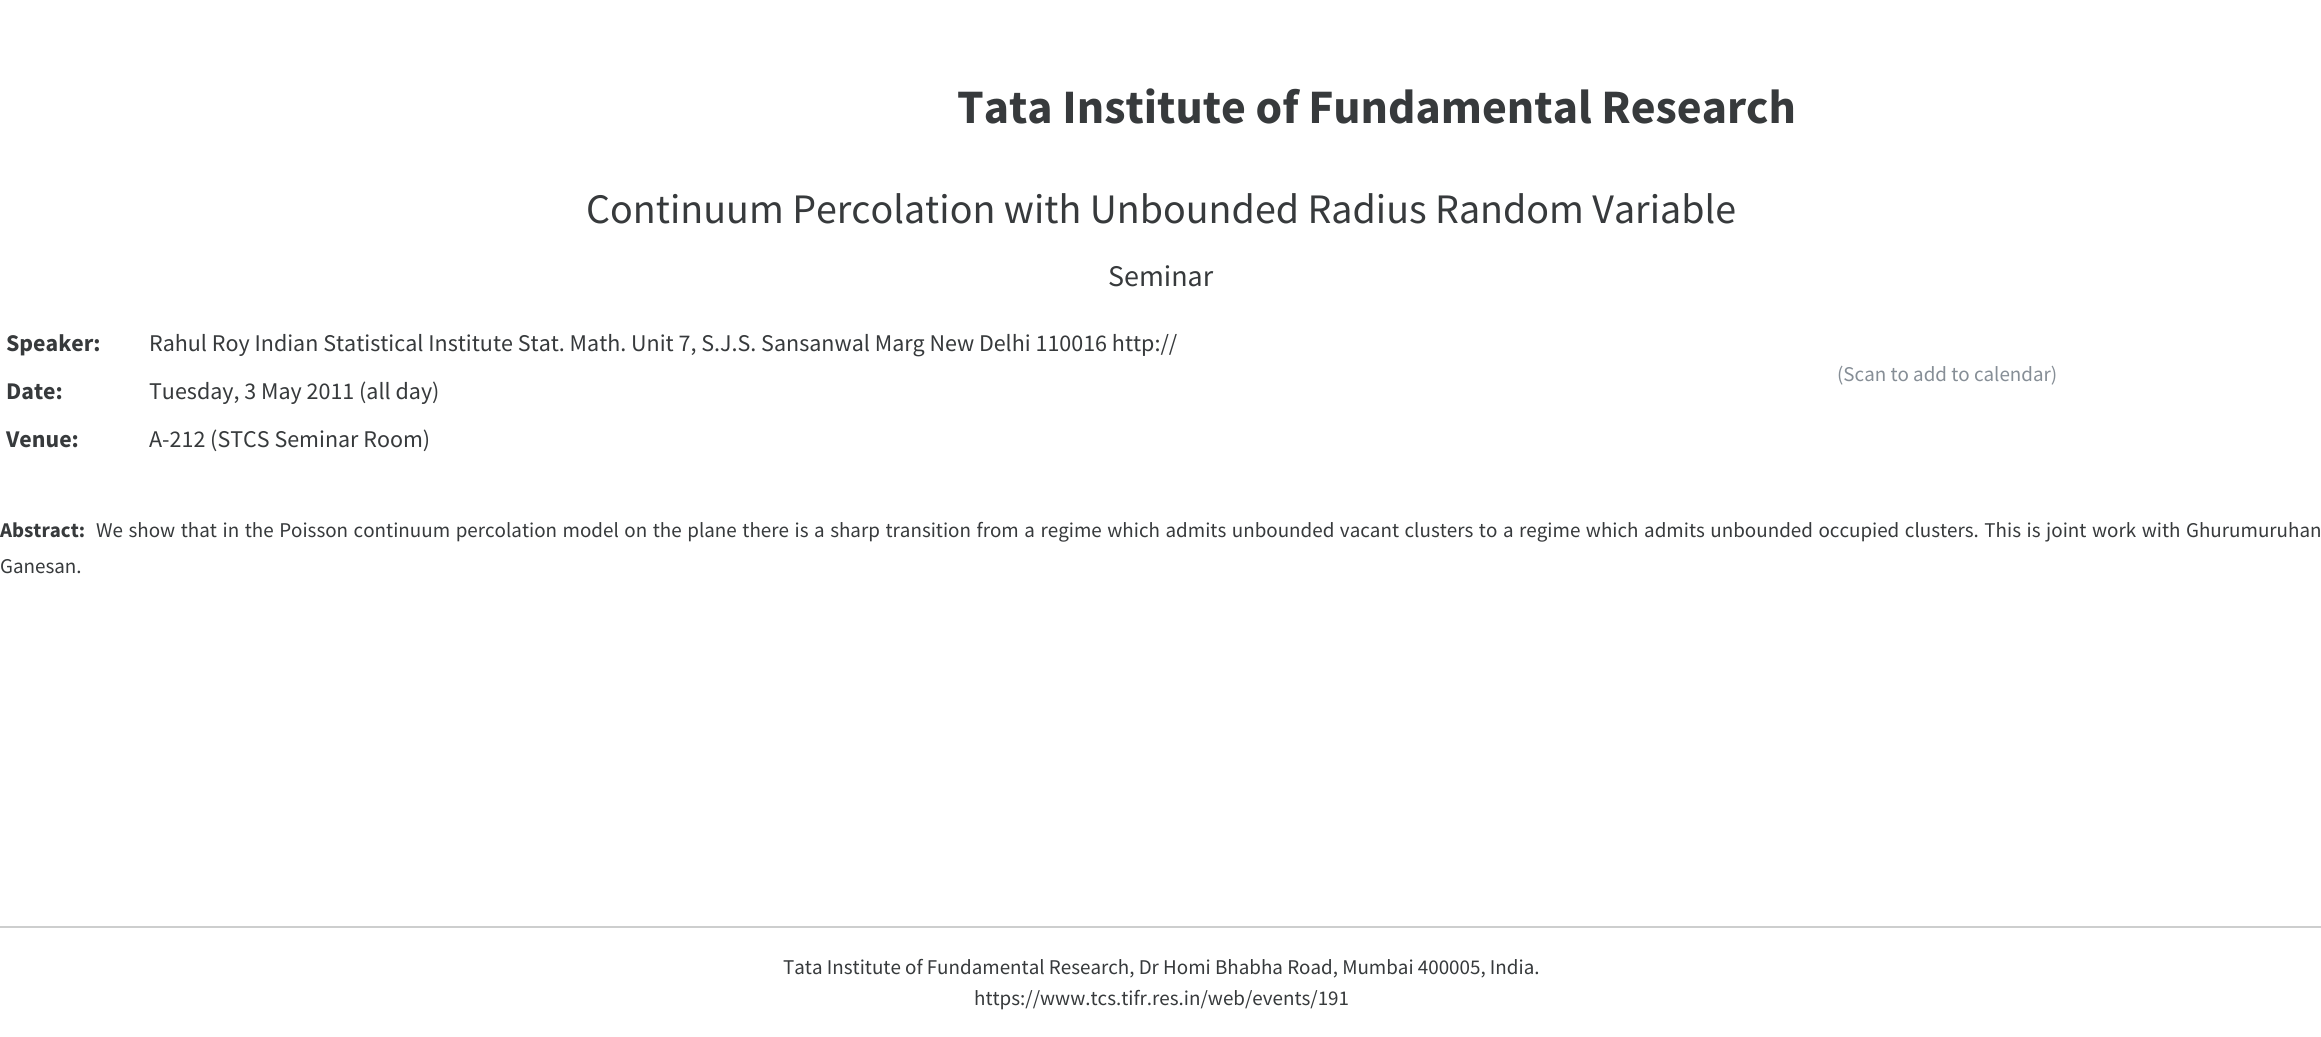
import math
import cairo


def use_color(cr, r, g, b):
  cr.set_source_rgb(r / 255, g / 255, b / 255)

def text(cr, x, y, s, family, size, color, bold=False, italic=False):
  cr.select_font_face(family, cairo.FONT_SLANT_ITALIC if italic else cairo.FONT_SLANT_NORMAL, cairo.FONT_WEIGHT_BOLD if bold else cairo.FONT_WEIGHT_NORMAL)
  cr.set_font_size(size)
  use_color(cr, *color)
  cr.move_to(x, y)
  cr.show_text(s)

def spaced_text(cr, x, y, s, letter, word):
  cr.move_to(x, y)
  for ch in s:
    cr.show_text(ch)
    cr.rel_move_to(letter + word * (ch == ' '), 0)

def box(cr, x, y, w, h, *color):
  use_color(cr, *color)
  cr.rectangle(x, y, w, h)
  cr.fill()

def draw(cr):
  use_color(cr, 255, 255, 255)
  cr.paint()
  box(cr, 0, 926, 2321, 2, 205, 206, 206)
  text(cr, 957, 123, "Tata Institute of Fundamental Research", "Source Sans Pro", 48, (55, 58, 60), bold=True)
  text(cr, 586, 223, "Continuum Percolation with Unbounded Radius Random Variable", "Source Sans Pro", 42, (55, 58, 60))
  text(cr, 1108, 286, "Seminar", "Source Sans Pro", 30, (55, 58, 60))
  text(cr, 6, 351, "Speaker:", "Source Sans Pro", 24, (55, 58, 60), bold=True)
  text(cr, 149, 351, "Rahul Roy Indian Statistical Institute Stat. Math. Unit 7, S.J.S. Sansanwal Marg New Delhi 110016 http://", "Source Sans Pro", 24, (55, 58, 60))
  text(cr, 6, 399, "Date:", "Source Sans Pro", 24, (55, 58, 60), bold=True)
  text(cr, 149, 399, "Tuesday, 3 May 2011 (all day)", "Source Sans Pro", 24, (55, 58, 60))
  text(cr, 6, 447, "Venue:", "Source Sans Pro", 24, (55, 58, 60), bold=True)
  text(cr, 149, 447, "A-212 (STCS Seminar Room)", "Source Sans Pro", 24, (55, 58, 60))
  text(cr, 1837, 381, "(Scan to add to calendar)", "Source Sans Pro", 21, (134, 142, 150))
  text(cr, 0, 537, "Abstract:", "Source Sans Pro", 21, (55, 58, 60), bold=True)
  cr.select_font_face("Source Sans Pro")
  spaced_text(cr, 96, 537, "We show that in the Poisson continuum percolation model on the plane there is a sharp transition from a regime which admits unbounded vacant clusters to a regime which admits unbounded occupied clusters. This is joint work with Ghurumuruhan", 0, 1.35)
  text(cr, 0, 573, "Ganesan.", "Source Sans Pro", 21, (55, 58, 60))
  text(cr, 783, 974, "Tata Institute of Fundamental Research, Dr Homi Bhabha Road, Mumbai 400005, India.", "Source Sans Pro", 21, (55, 58, 60))
  text(cr, 974, 1005, "https://www.tcs.tifr.res.in/web/events/191", "Source Sans Pro", 21, (55, 58, 60))


surface = cairo.ImageSurface(cairo.FORMAT_RGB24, 2321, 1037)
cr = cairo.Context(surface)
options = cairo.FontOptions()
options.set_hint_metrics(cairo.HINT_METRICS_OFF)
options.set_hint_style(cairo.HINT_STYLE_NONE)
cr.set_font_options(options)
cr.set_miter_limit(4)
draw(cr)
surface.write_to_png("out.png")
